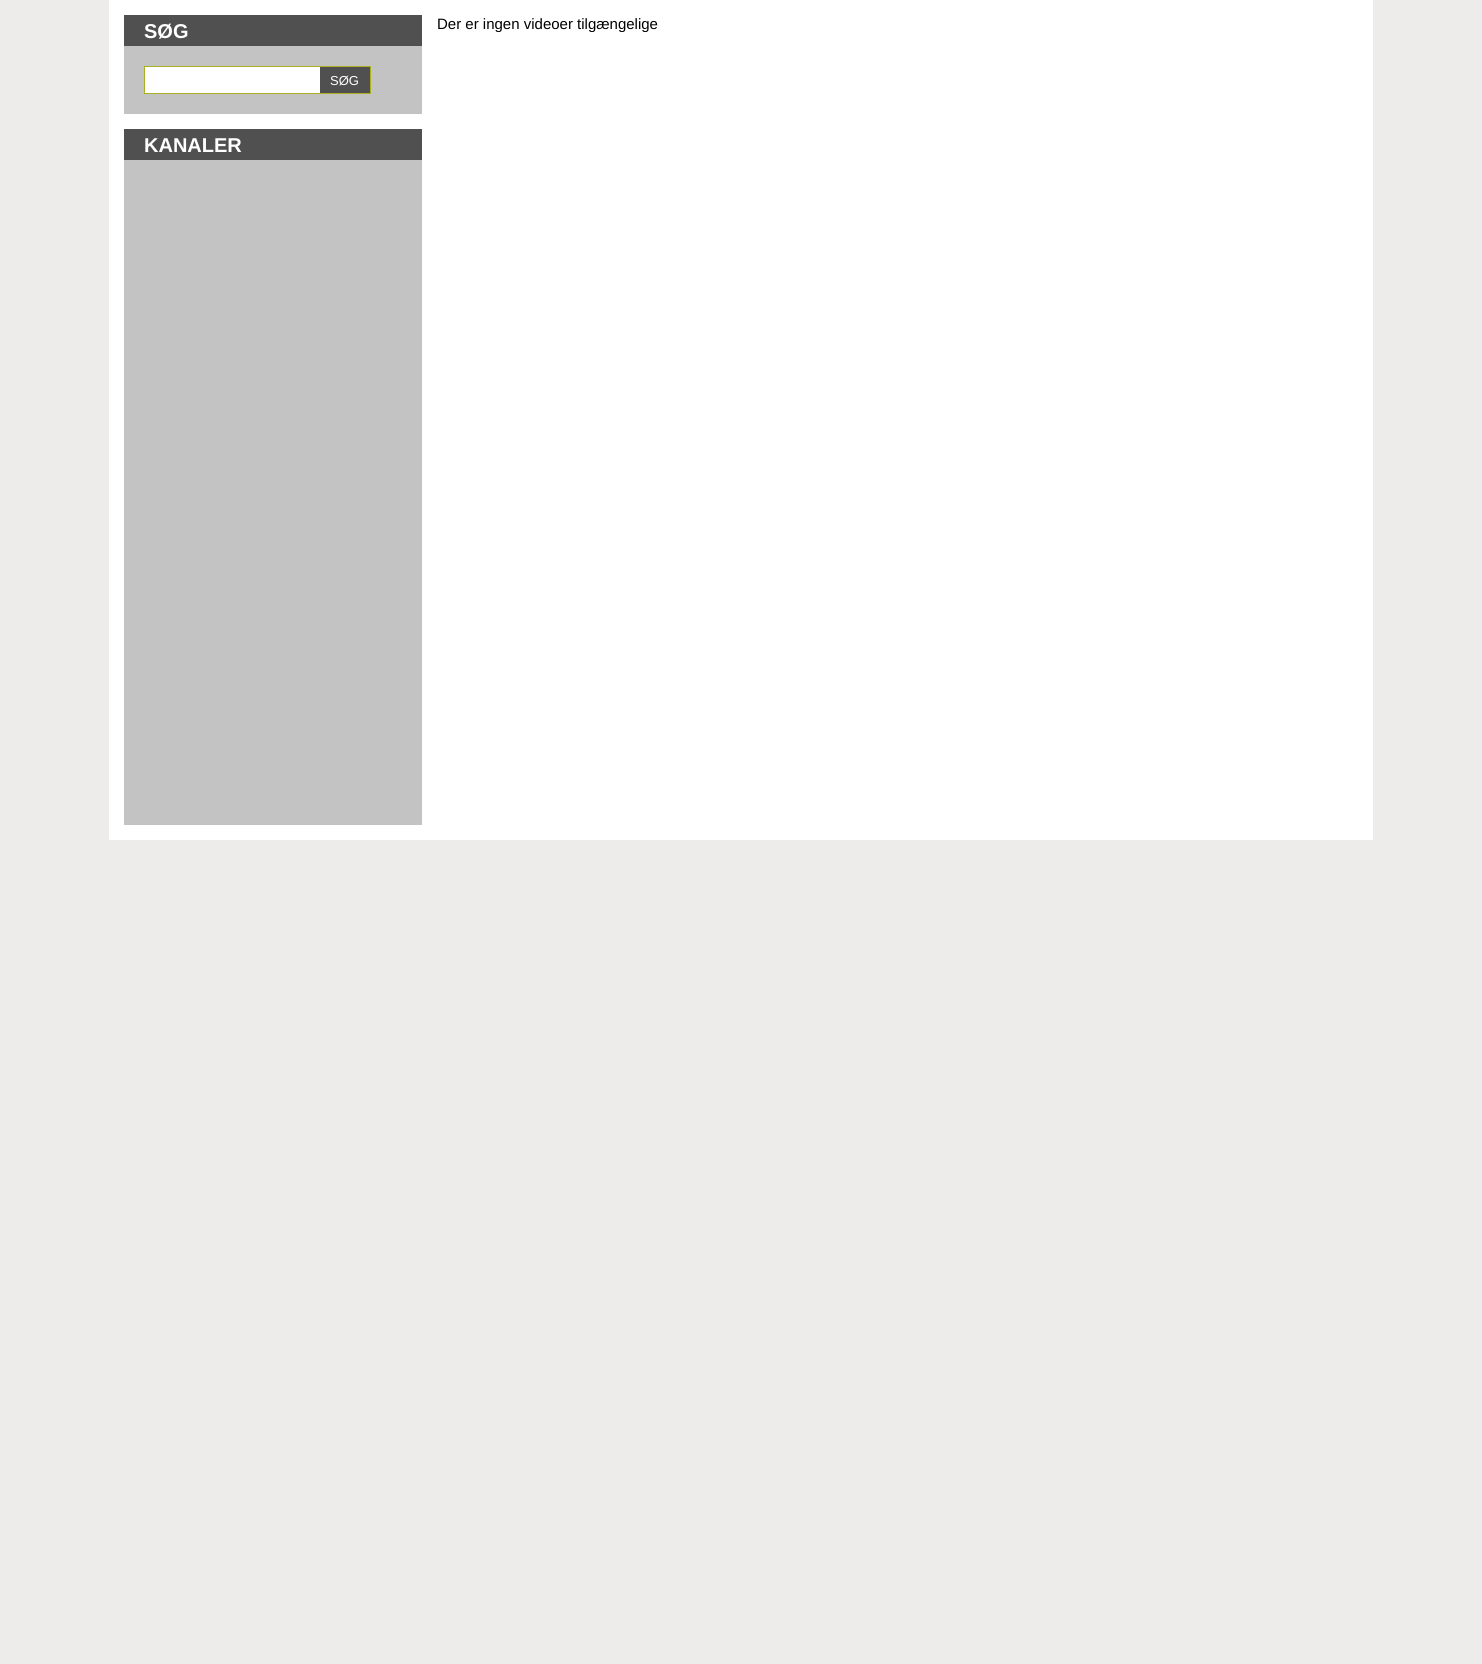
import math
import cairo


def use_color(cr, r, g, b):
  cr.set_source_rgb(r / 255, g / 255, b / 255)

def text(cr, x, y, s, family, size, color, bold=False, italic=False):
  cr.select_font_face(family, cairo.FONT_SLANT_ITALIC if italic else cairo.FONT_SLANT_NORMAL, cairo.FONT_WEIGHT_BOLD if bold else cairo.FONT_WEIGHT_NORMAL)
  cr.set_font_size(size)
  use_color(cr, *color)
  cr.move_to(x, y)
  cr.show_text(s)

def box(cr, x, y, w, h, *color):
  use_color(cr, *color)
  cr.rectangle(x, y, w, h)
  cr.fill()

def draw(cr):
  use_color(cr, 237, 236, 234)
  cr.paint()
  box(cr, 109, 0, 1264, 840, 255, 255, 255)
  box(cr, 124, 46, 298, 779, 195, 195, 195)
  box(cr, 124, 15, 298, 31, 80, 80, 80)
  box(cr, 124, 114, 298, 15, 255, 255, 255)
  box(cr, 144, 66, 227, 1, 171, 177, 35)
  box(cr, 144, 93, 176, 1, 171, 177, 35)
  box(cr, 144, 66, 1, 28, 171, 177, 35)
  box(cr, 145, 67, 175, 26, 255, 255, 255)
  box(cr, 370, 66, 1, 28, 171, 177, 35)
  box(cr, 320, 93, 51, 1, 171, 177, 35)
  box(cr, 320, 67, 50, 26, 80, 80, 80)
  box(cr, 124, 129, 298, 31, 80, 80, 80)
  text(cr, 144, 38, "SØG", "Liberation Sans", 20, (255, 255, 255), bold=True)
  text(cr, 330, 85, "SØG", "Liberation Sans", 13, (255, 255, 255))
  text(cr, 144, 152, "KANALER", "Liberation Sans", 20, (255, 255, 255), bold=True)
  cr.save()
  cr.rectangle(437, 15, 921, 17)
  cr.clip()
  text(cr, 437, 29, "Der er ingen videoer tilgængelige", "Liberation Sans", 15, (0, 0, 0))
  cr.restore()


surface = cairo.ImageSurface(cairo.FORMAT_RGB24, 1482, 1664)
cr = cairo.Context(surface)
options = cairo.FontOptions()
options.set_hint_metrics(cairo.HINT_METRICS_OFF)
options.set_hint_style(cairo.HINT_STYLE_NONE)
cr.set_font_options(options)
cr.set_miter_limit(4)
draw(cr)
surface.write_to_png("out.png")
